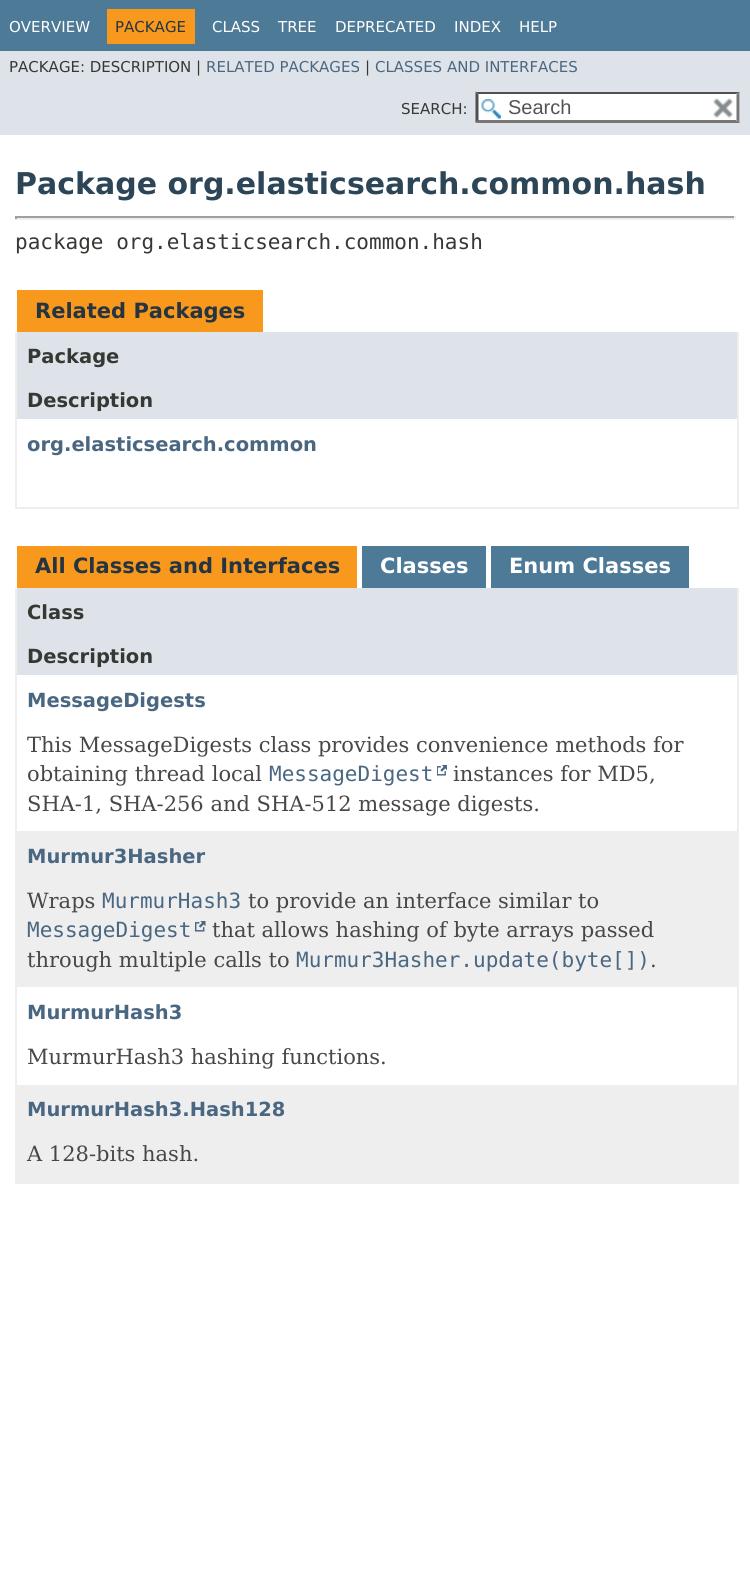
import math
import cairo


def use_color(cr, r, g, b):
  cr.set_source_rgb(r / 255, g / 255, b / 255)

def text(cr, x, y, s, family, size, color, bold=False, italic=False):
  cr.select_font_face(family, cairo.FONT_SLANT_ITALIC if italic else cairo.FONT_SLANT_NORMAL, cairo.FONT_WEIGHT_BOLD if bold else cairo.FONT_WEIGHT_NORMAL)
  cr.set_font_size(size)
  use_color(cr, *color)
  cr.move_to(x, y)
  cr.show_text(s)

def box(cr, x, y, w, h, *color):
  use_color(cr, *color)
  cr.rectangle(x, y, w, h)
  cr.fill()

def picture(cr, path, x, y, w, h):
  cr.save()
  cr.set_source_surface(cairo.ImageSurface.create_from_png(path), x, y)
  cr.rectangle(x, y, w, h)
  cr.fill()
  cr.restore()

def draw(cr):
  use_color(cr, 255, 255, 255)
  cr.paint()
  box(cr, 0, 0, 750, 51, 77, 122, 151)
  box(cr, 107, 9, 88, 35, 248, 152, 29)
  box(cr, 0, 51, 750, 84, 222, 227, 233)
  box(cr, 476, 92, 264, 31, 255, 255, 255)
  picture(cr, "img_01.png", 481, 99, 20, 20)
  use_color(cr, 79, 79, 79)
  cr.new_path()
  cr.move_to(476, 92)
  cr.line_to(740, 92)
  cr.line_to(736, 94)
  cr.line_to(478, 94)
  cr.close_path()
  cr.fill()
  use_color(cr, 118, 118, 118)
  cr.new_path()
  cr.move_to(739.5, 91.5)
  cr.line_to(739.5, 123)
  cr.line_to(736.5, 120)
  cr.line_to(736.5, 94.5)
  cr.close_path()
  cr.fill()
  cr.new_path()
  cr.move_to(740, 123)
  cr.line_to(476, 123)
  cr.line_to(478, 120)
  cr.line_to(736, 120)
  cr.close_path()
  cr.fill()
  use_color(cr, 79, 79, 79)
  cr.new_path()
  cr.move_to(475.5, 123)
  cr.line_to(475.5, 91.5)
  cr.line_to(478.5, 94.5)
  cr.line_to(478.5, 120)
  cr.close_path()
  cr.fill()
  picture(cr, "img_02.png", 713, 98, 20, 20)
  box(cr, 15, 216, 720, 2, 159, 159, 159)
  box(cr, 734, 216, 2, 3, 238, 238, 238)
  box(cr, 15, 218, 720, 2, 238, 238, 238)
  box(cr, 15, 216, 2, 3, 159, 159, 159)
  box(cr, 17, 290, 246, 42, 248, 152, 29)
  box(cr, 737, 332, 2, 177, 238, 238, 238)
  box(cr, 15, 507, 723, 2, 238, 238, 238)
  box(cr, 15, 332, 2, 177, 238, 238, 238)
  box(cr, 17, 332, 720, 87, 222, 227, 233)
  box(cr, 17, 546, 340, 42, 248, 152, 29)
  box(cr, 362, 546, 124, 42, 77, 122, 151)
  box(cr, 491, 546, 198, 42, 77, 122, 151)
  box(cr, 737, 588, 2, 596, 238, 238, 238)
  box(cr, 15, 1182, 723, 2, 238, 238, 238)
  box(cr, 15, 588, 2, 596, 238, 238, 238)
  box(cr, 17, 588, 720, 87, 222, 227, 233)
  picture(cr, "img_03.png", 437, 765, 10, 11)
  box(cr, 17, 831, 720, 156, 238, 238, 239)
  picture(cr, "img_04.png", 195, 921, 11, 11)
  box(cr, 17, 1085, 720, 97, 238, 238, 239)
  text(cr, 9, 32, "OVERVIEW", "DejaVu Sans", 15, (255, 255, 255))
  text(cr, 115, 32, "PACKAGE", "DejaVu Sans", 15, (37, 52, 65))
  text(cr, 212, 32, "CLASS", "DejaVu Sans", 15, (255, 255, 255))
  text(cr, 278, 32, "TREE", "DejaVu Sans", 15, (255, 255, 255))
  text(cr, 335, 32, "DEPRECATED", "DejaVu Sans", 15, (255, 255, 255))
  text(cr, 454, 32, "INDEX", "DejaVu Sans", 15, (255, 255, 255))
  text(cr, 519, 32, "HELP", "DejaVu Sans", 15, (255, 255, 255))
  text(cr, 9, 72, "PACKAGE: DESCRIPTION |", "DejaVu Sans", 15, (53, 56, 51))
  text(cr, 206, 72, "RELATED PACKAGES", "DejaVu Sans", 15, (74, 103, 130))
  text(cr, 365, 72, "|", "DejaVu Sans", 15, (53, 56, 51))
  text(cr, 375, 72, "CLASSES AND INTERFACES", "DejaVu Sans", 15, (74, 103, 130))
  text(cr, 401, 114, "SEARCH:", "DejaVu Sans", 15, (53, 56, 51))
  text(cr, 508, 114, "Search", "Liberation Sans", 20, (84, 84, 84))
  text(cr, 15, 194, "Package org.elasticsearch.common.hash", "DejaVu Sans", 30, (44, 69, 87), bold=True)
  text(cr, 15, 249, "package org.elasticsearch.common.hash", "DejaVu Sans Mono", 21, (53, 56, 51))
  text(cr, 35, 318, "Related Packages", "DejaVu Sans", 21, (37, 52, 65), bold=True)
  text(cr, 27, 363, "Package", "DejaVu Sans", 19.5, (53, 56, 51), bold=True)
  text(cr, 27, 407, "Description", "DejaVu Sans", 19.5, (53, 56, 51), bold=True)
  text(cr, 27, 451, "org.elasticsearch.common", "DejaVu Sans", 19.5, (74, 103, 130), bold=True)
  text(cr, 35, 573, "All Classes and Interfaces", "DejaVu Sans", 21, (37, 52, 65), bold=True)
  text(cr, 380, 573, "Classes", "DejaVu Sans", 21, (255, 255, 255), bold=True)
  text(cr, 509, 573, "Enum Classes", "DejaVu Sans", 21, (255, 255, 255), bold=True)
  text(cr, 27, 619, "Class", "DejaVu Sans", 19.5, (53, 56, 51), bold=True)
  text(cr, 27, 663, "Description", "DejaVu Sans", 19.5, (53, 56, 51), bold=True)
  text(cr, 27, 707, "MessageDigests", "DejaVu Sans", 19.5, (74, 103, 130), bold=True)
  text(cr, 27, 752, "This MessageDigests class provides convenience methods for", "DejaVu Serif", 21, (71, 71, 71))
  text(cr, 27, 781, "obtaining thread local", "DejaVu Serif", 21, (71, 71, 71))
  text(cr, 269, 781, "MessageDigest", "DejaVu Sans Mono", 21, (74, 103, 130))
  text(cr, 453, 781, "instances for MD5,", "DejaVu Serif", 21, (71, 71, 71))
  text(cr, 27, 811, "SHA-1, SHA-256 and SHA-512 message digests.", "DejaVu Serif", 21, (71, 71, 71))
  text(cr, 27, 863, "Murmur3Hasher", "DejaVu Sans", 19.5, (74, 103, 130), bold=True)
  text(cr, 27, 908, "Wraps", "DejaVu Serif", 21, (71, 71, 71))
  text(cr, 102, 908, "MurmurHash3", "DejaVu Sans Mono", 21, (74, 103, 130))
  text(cr, 248, 908, "to provide an interface similar to", "DejaVu Serif", 21, (71, 71, 71))
  text(cr, 27, 937, "MessageDigest", "DejaVu Sans Mono", 21, (74, 103, 130))
  text(cr, 212, 937, "that allows hashing of byte arrays passed", "DejaVu Serif", 21, (71, 71, 71))
  text(cr, 27, 967, "through multiple calls to", "DejaVu Serif", 21, (71, 71, 71))
  text(cr, 296, 967, "Murmur3Hasher.update(byte[])", "DejaVu Sans Mono", 21, (74, 103, 130))
  text(cr, 650, 967, ".", "DejaVu Serif", 21, (71, 71, 71))
  text(cr, 27, 1019, "MurmurHash3", "DejaVu Sans", 19.5, (74, 103, 130), bold=True)
  text(cr, 27, 1064, "MurmurHash3 hashing functions.", "DejaVu Serif", 21, (71, 71, 71))
  text(cr, 27, 1116, "MurmurHash3.Hash128", "DejaVu Sans", 19.5, (74, 103, 130), bold=True)
  text(cr, 27, 1161, "A 128-bits hash.", "DejaVu Serif", 21, (71, 71, 71))


surface = cairo.ImageSurface(cairo.FORMAT_RGB24, 750, 1574)
cr = cairo.Context(surface)
options = cairo.FontOptions()
options.set_hint_metrics(cairo.HINT_METRICS_OFF)
options.set_hint_style(cairo.HINT_STYLE_NONE)
cr.set_font_options(options)
cr.set_miter_limit(4)
draw(cr)
surface.write_to_png("out.png")
